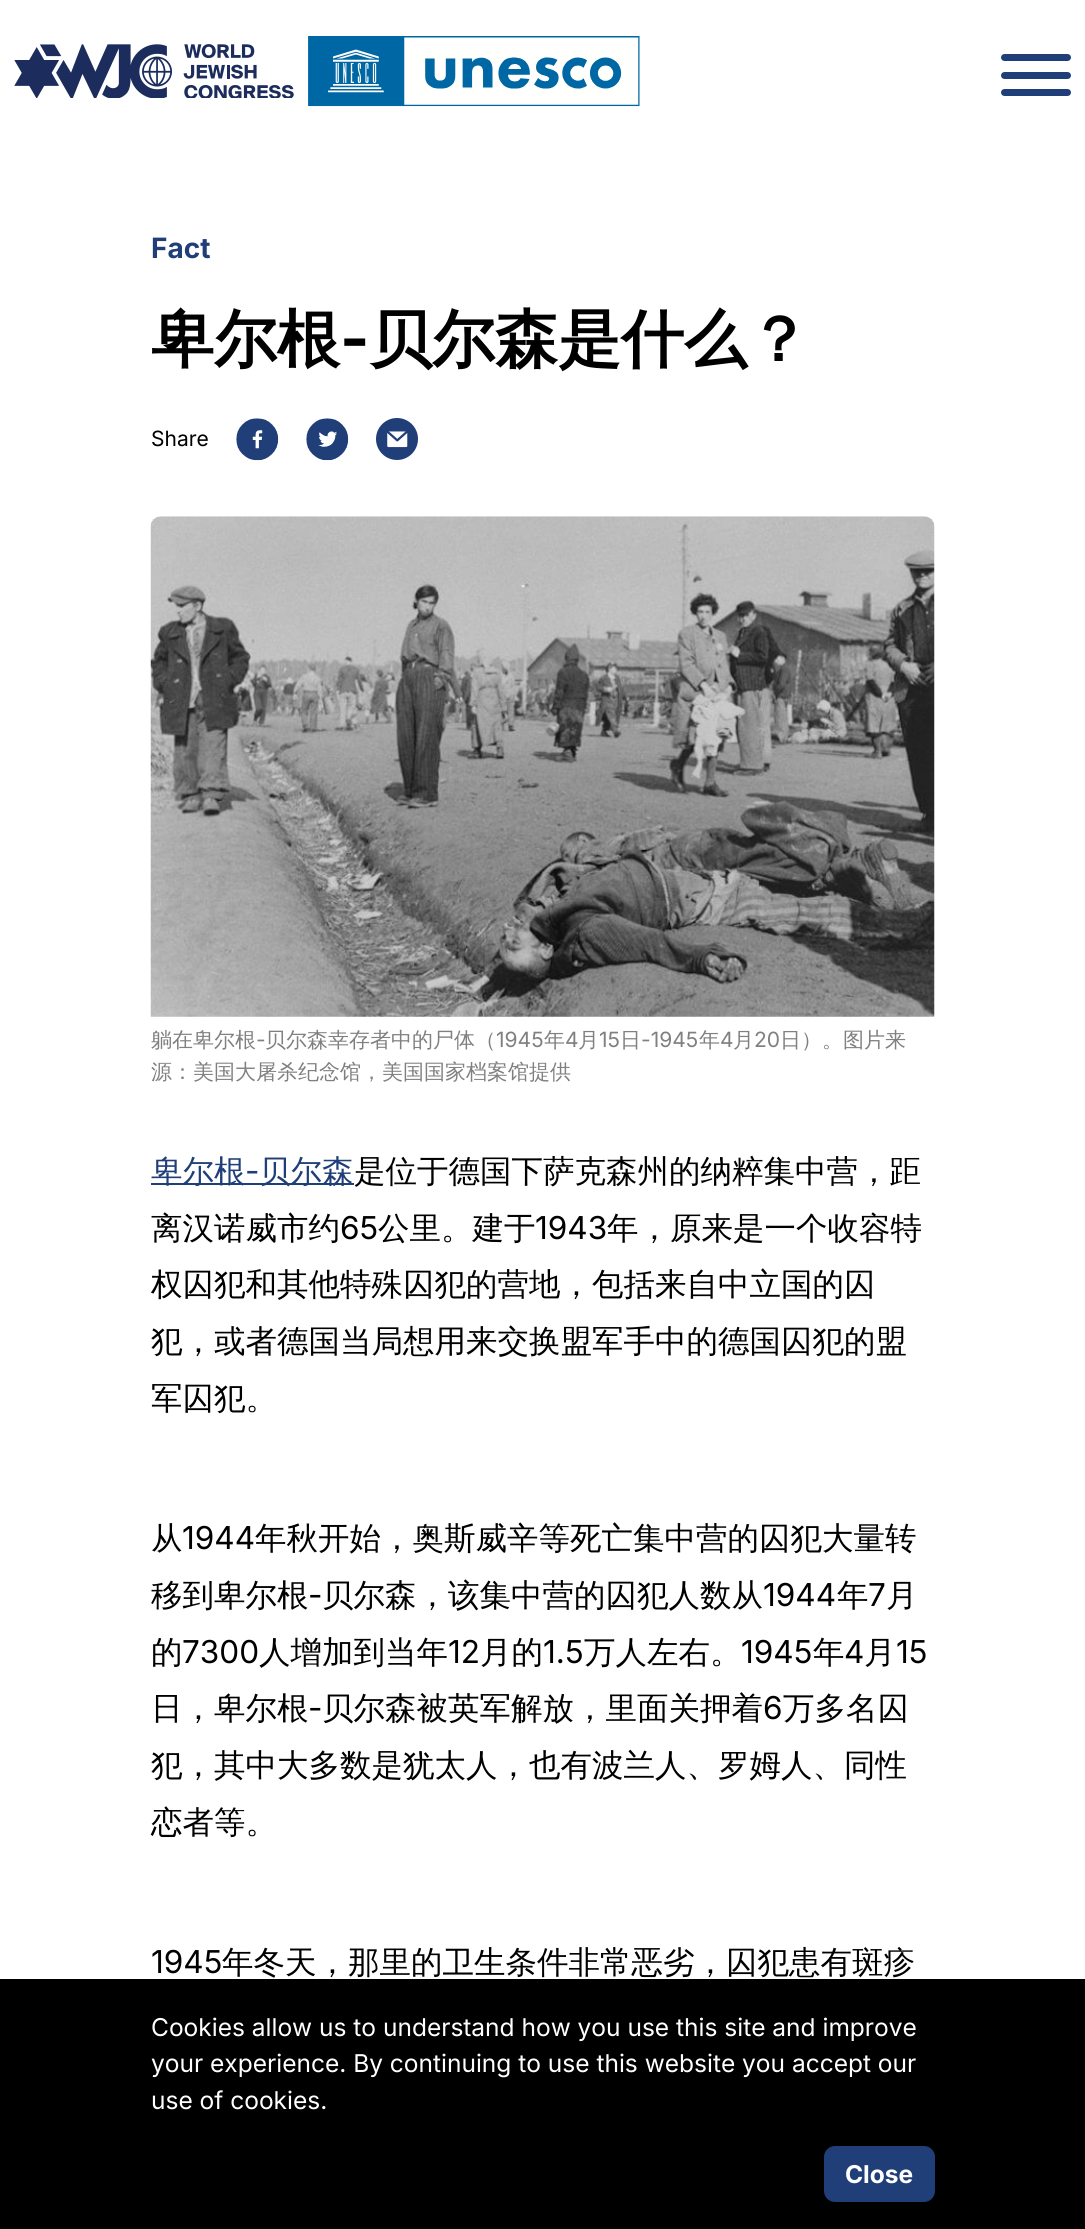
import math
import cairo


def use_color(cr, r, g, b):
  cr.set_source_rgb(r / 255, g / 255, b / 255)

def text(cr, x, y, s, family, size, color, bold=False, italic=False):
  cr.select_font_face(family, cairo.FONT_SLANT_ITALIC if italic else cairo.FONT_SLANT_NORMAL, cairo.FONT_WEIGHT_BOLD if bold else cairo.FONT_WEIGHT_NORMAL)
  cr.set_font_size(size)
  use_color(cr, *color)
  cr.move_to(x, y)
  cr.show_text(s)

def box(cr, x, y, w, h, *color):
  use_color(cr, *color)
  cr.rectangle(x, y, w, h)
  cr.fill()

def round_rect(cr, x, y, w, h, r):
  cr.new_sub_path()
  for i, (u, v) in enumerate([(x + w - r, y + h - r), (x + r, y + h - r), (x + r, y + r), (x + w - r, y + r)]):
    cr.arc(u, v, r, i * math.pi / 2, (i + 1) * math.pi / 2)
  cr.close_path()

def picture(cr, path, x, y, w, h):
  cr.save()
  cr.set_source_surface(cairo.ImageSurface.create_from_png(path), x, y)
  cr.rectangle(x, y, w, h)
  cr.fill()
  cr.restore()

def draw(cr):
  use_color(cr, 255, 255, 255)
  cr.paint()
  picture(cr, "img_01.png", 14, 44, 280, 54)
  picture(cr, "img_02.png", 308, 36, 332, 71)
  use_color(cr, 32, 63, 120)
  round_rect(cr, 1001, 54, 70, 7, 3.5)
  cr.fill()
  round_rect(cr, 1001, 72, 70, 7, 3.5)
  cr.fill()
  round_rect(cr, 1001, 89, 70, 7, 3.5)
  cr.fill()
  picture(cr, "img_03.png", 236, 418, 43, 43)
  picture(cr, "img_04.png", 306, 418, 43, 43)
  picture(cr, "img_05.png", 376, 418, 42, 42)
  picture(cr, "img_06.png", 150, 516, 785, 501)
  box(cr, 151, 1183, 203, 2, 32, 63, 120)
  box(cr, 0, 1979, 1085, 250, 0, 0, 0)
  use_color(cr, 32, 63, 120)
  round_rect(cr, 824, 2146, 111, 56, 11)
  cr.fill()
  text(cr, 151, 258, "Fact", "Inter", 28, (32, 63, 120), bold=True)
  text(cr, 151, 361, "卑尔根", "WenQuanYi Zen Hei", 63, (0, 0, 0), bold=True)
  text(cr, 340, 361, "-", "Inter", 63, (0, 0, 0), bold=True)
  text(cr, 369, 361, "贝尔森是什么？", "WenQuanYi Zen Hei", 63, (0, 0, 0), bold=True)
  text(cr, 151, 446, "Share", "Inter", 21, (0, 0, 0))
  text(cr, 151, 1047, "躺在卑尔根", "WenQuanYi Zen Hei Medium", 21, (128, 128, 128))
  text(cr, 256, 1047, "-", "Inter", 21, (128, 128, 128))
  text(cr, 265, 1047, "贝尔森幸存者中的尸体（", "WenQuanYi Zen Hei Medium", 21, (128, 128, 128))
  text(cr, 496, 1047, "1945", "Inter", 21, (128, 128, 128))
  text(cr, 544, 1047, "年", "WenQuanYi Zen Hei Medium", 21, (128, 128, 128))
  text(cr, 565, 1047, "4", "Inter", 21, (128, 128, 128))
  text(cr, 578, 1047, "月", "WenQuanYi Zen Hei Medium", 21, (128, 128, 128))
  text(cr, 599, 1047, "15", "Inter", 21, (128, 128, 128))
  text(cr, 620, 1047, "日", "WenQuanYi Zen Hei Medium", 21, (128, 128, 128))
  text(cr, 641, 1047, "-1945", "Inter", 21, (128, 128, 128))
  text(cr, 699, 1047, "年", "WenQuanYi Zen Hei Medium", 21, (128, 128, 128))
  text(cr, 720, 1047, "4", "Inter", 21, (128, 128, 128))
  text(cr, 733, 1047, "月", "WenQuanYi Zen Hei Medium", 21, (128, 128, 128))
  text(cr, 754, 1047, "20", "Inter", 21, (128, 128, 128))
  text(cr, 780, 1047, "日）。图片来", "WenQuanYi Zen Hei Medium", 21, (128, 128, 128))
  text(cr, 151, 1079, "源：美国大屠杀纪念馆，美国国家档案馆提供", "WenQuanYi Zen Hei Medium", 21, (128, 128, 128))
  text(cr, 151, 1182, "卑尔根", "WenQuanYi Zen Hei Medium", 31.5, (32, 63, 120))
  text(cr, 245, 1182, "-", "Inter", 31.5, (32, 63, 120))
  text(cr, 259, 1182, "贝尔森", "WenQuanYi Zen Hei Medium", 31.5, (32, 63, 120))
  text(cr, 354, 1182, "是位于德国下萨克森州的纳粹集中营，距", "WenQuanYi Zen Hei Medium", 31.5, (0, 0, 0))
  text(cr, 151, 1239, "离汉诺威市约", "WenQuanYi Zen Hei Medium", 31.5, (0, 0, 0))
  text(cr, 340, 1239, "65", "Inter", 31.5, (0, 0, 0))
  text(cr, 378, 1239, "公里。建于", "WenQuanYi Zen Hei Medium", 31.5, (0, 0, 0))
  text(cr, 535, 1239, "1943", "Inter", 31.5, (0, 0, 0))
  text(cr, 607, 1239, "年，原来是一个收容特", "WenQuanYi Zen Hei Medium", 31.5, (0, 0, 0))
  text(cr, 151, 1295, "权囚犯和其他特殊囚犯的营地，包括来自中立国的囚", "WenQuanYi Zen Hei Medium", 31.5, (0, 0, 0))
  text(cr, 151, 1352, "犯，或者德国当局想用来交换盟军手中的德国囚犯的盟", "WenQuanYi Zen Hei Medium", 31.5, (0, 0, 0))
  text(cr, 151, 1409, "军囚犯。", "WenQuanYi Zen Hei Medium", 31.5, (0, 0, 0))
  text(cr, 151, 1549, "从", "WenQuanYi Zen Hei Medium", 31.5, (0, 0, 0))
  text(cr, 182, 1549, "1944", "Inter", 31.5, (0, 0, 0))
  text(cr, 255, 1549, "年秋开始，奥斯威辛等死亡集中营的囚犯大量转", "WenQuanYi Zen Hei Medium", 31.5, (0, 0, 0))
  text(cr, 151, 1606, "移到卑尔根", "WenQuanYi Zen Hei Medium", 31.5, (0, 0, 0))
  text(cr, 308, 1606, "-", "Inter", 31.5, (0, 0, 0))
  text(cr, 322, 1606, "贝尔森，该集中营的囚犯人数从", "WenQuanYi Zen Hei Medium", 31.5, (0, 0, 0))
  text(cr, 763, 1606, "1944", "Inter", 31.5, (0, 0, 0))
  text(cr, 837, 1606, "年", "WenQuanYi Zen Hei Medium", 31.5, (0, 0, 0))
  text(cr, 868, 1606, "7", "Inter", 31.5, (0, 0, 0))
  text(cr, 886, 1606, "月", "WenQuanYi Zen Hei Medium", 31.5, (0, 0, 0))
  text(cr, 151, 1663, "的", "WenQuanYi Zen Hei Medium", 31.5, (0, 0, 0))
  text(cr, 182, 1663, "7300", "Inter", 31.5, (0, 0, 0))
  text(cr, 259, 1663, "人增加到当年", "WenQuanYi Zen Hei Medium", 31.5, (0, 0, 0))
  text(cr, 448, 1663, "12", "Inter", 31.5, (0, 0, 0))
  text(cr, 480, 1663, "月的", "WenQuanYi Zen Hei Medium", 31.5, (0, 0, 0))
  text(cr, 543, 1663, "1.5", "Inter", 31.5, (0, 0, 0))
  text(cr, 584, 1663, "万人左右。", "WenQuanYi Zen Hei Medium", 31.5, (0, 0, 0))
  text(cr, 741, 1663, "1945", "Inter", 31.5, (0, 0, 0))
  text(cr, 813, 1663, "年", "WenQuanYi Zen Hei Medium", 31.5, (0, 0, 0))
  text(cr, 844, 1663, "4", "Inter", 31.5, (0, 0, 0))
  text(cr, 864, 1663, "月", "WenQuanYi Zen Hei Medium", 31.5, (0, 0, 0))
  text(cr, 896, 1663, "15", "Inter", 31.5, (0, 0, 0))
  text(cr, 151, 1719, "日，卑尔根", "WenQuanYi Zen Hei Medium", 31.5, (0, 0, 0))
  text(cr, 308, 1719, "-", "Inter", 31.5, (0, 0, 0))
  text(cr, 322, 1719, "贝尔森被英军解放，里面关押着", "WenQuanYi Zen Hei Medium", 31.5, (0, 0, 0))
  text(cr, 763, 1719, "6", "Inter", 31.5, (0, 0, 0))
  text(cr, 783, 1719, "万多名囚", "WenQuanYi Zen Hei Medium", 31.5, (0, 0, 0))
  text(cr, 151, 1776, "犯，其中大多数是犹太人，也有波兰人、罗姆人、同性", "WenQuanYi Zen Hei Medium", 31.5, (0, 0, 0))
  text(cr, 151, 1833, "恋者等。", "WenQuanYi Zen Hei Medium", 31.5, (0, 0, 0))
  text(cr, 151, 1973, "1945", "Inter", 31.5, (0, 0, 0))
  text(cr, 222, 1973, "年冬天，那里的卫生条件非常恶劣，囚犯患有斑疹", "WenQuanYi Zen Hei Medium", 31.5, (0, 0, 0))
  text(cr, 151, 2036, "Cookies allow us to understand how you use this site and improve", "Inter", 24.5, (255, 255, 255))
  text(cr, 151, 2072, "your experience. By continuing to use this website you accept our", "Inter", 24.5, (255, 255, 255))
  text(cr, 151, 2109, "use of cookies.", "Inter", 24.5, (255, 255, 255))
  text(cr, 845, 2183, "Close", "Inter", 24.5, (255, 255, 255), bold=True)


surface = cairo.ImageSurface(cairo.FORMAT_RGB24, 1085, 2229)
cr = cairo.Context(surface)
options = cairo.FontOptions()
options.set_hint_metrics(cairo.HINT_METRICS_OFF)
options.set_hint_style(cairo.HINT_STYLE_NONE)
cr.set_font_options(options)
cr.set_miter_limit(4)
draw(cr)
surface.write_to_png("out.png")
